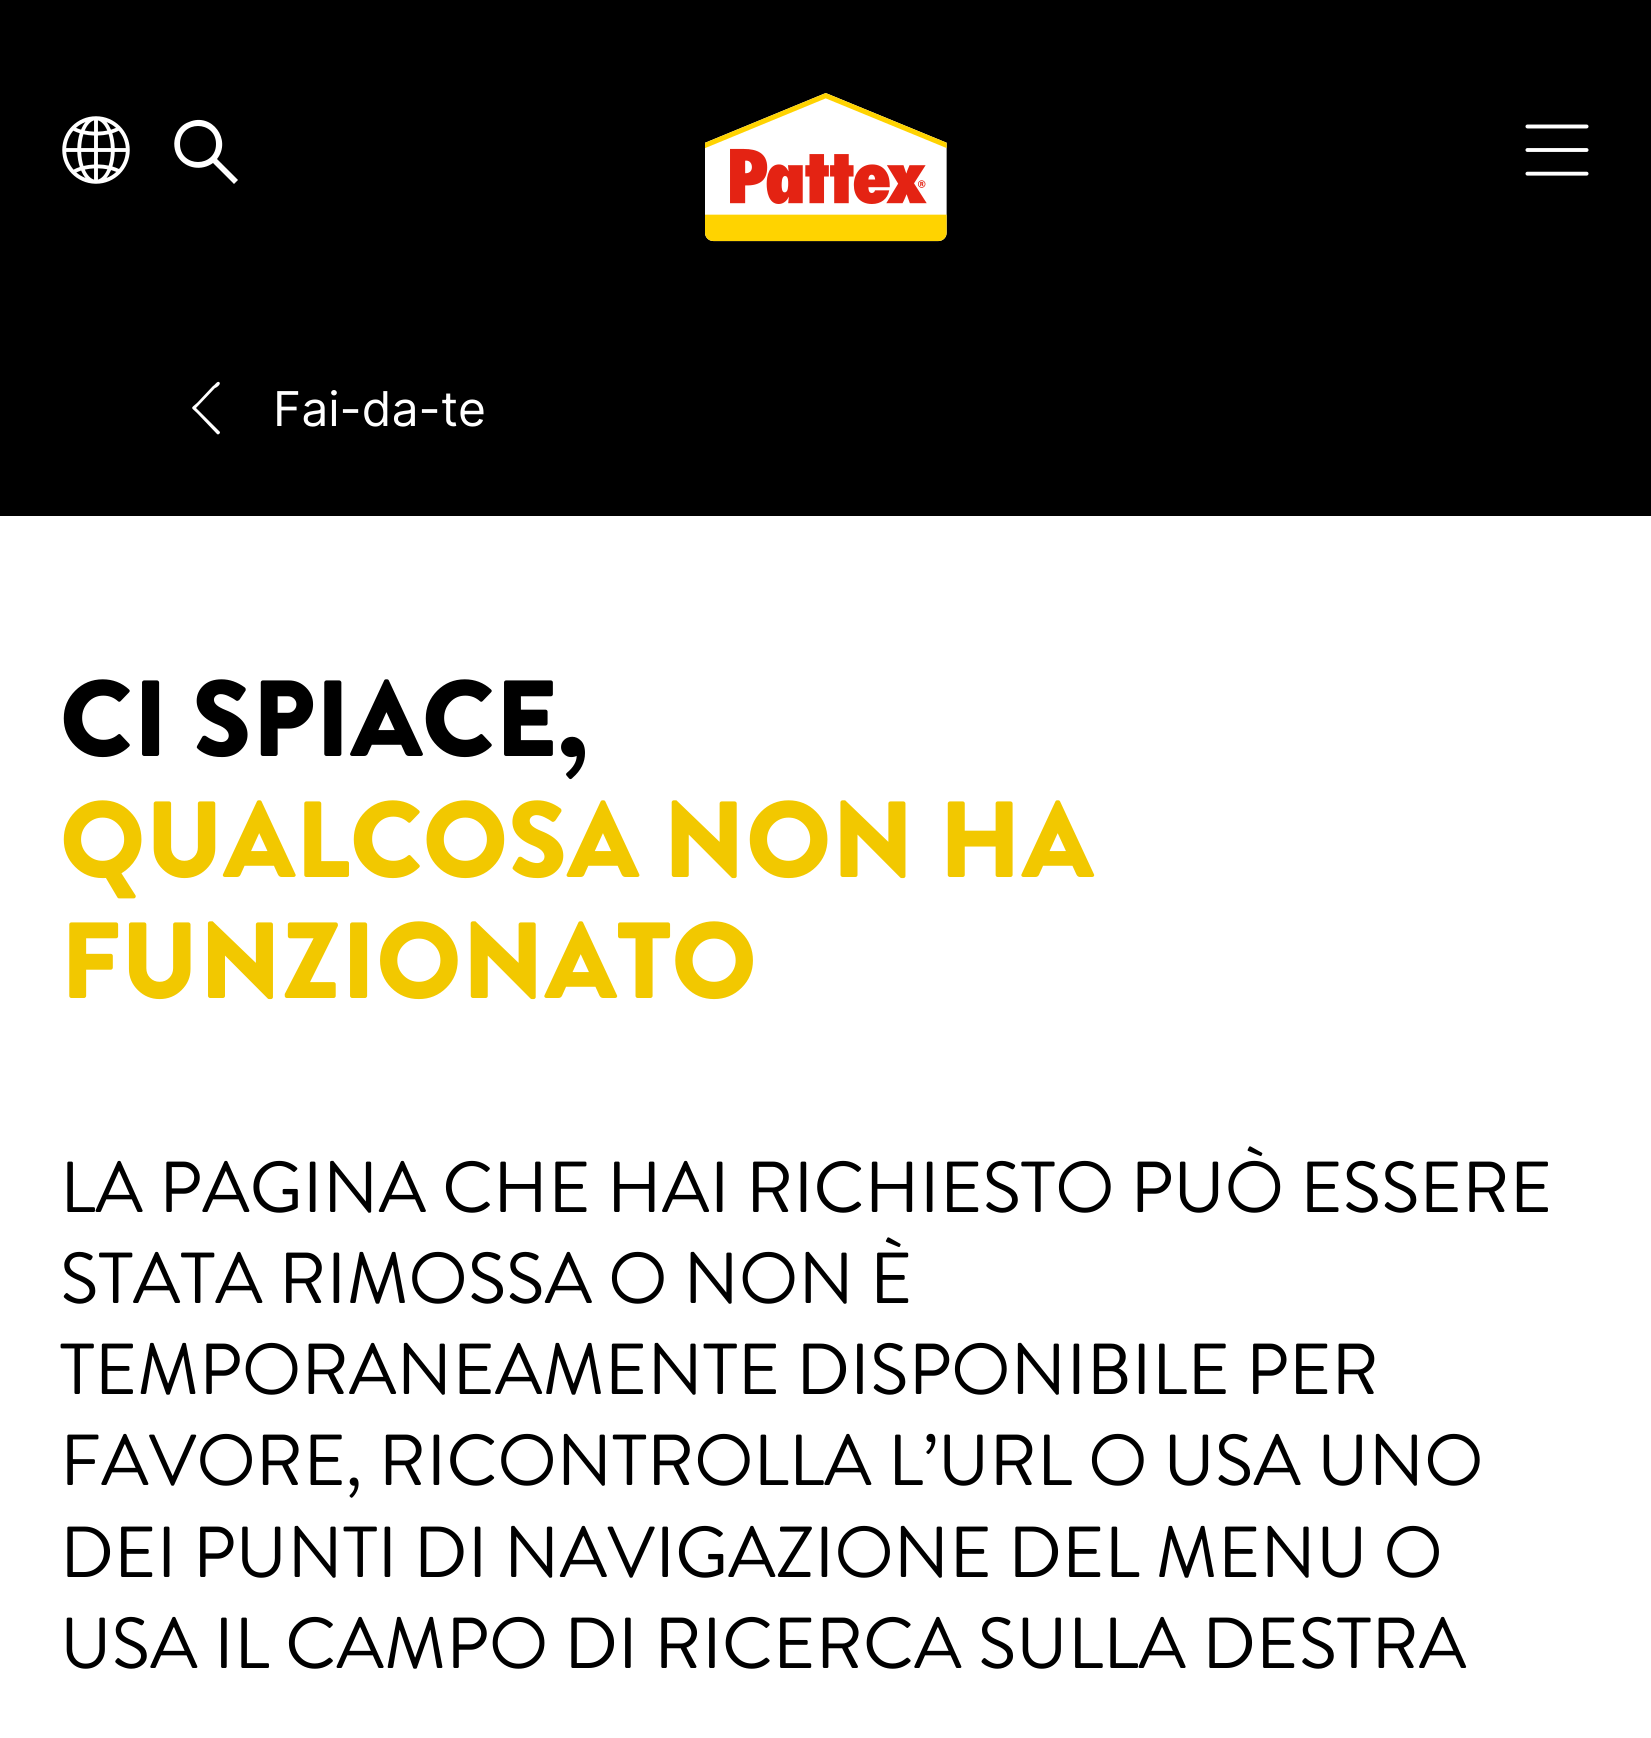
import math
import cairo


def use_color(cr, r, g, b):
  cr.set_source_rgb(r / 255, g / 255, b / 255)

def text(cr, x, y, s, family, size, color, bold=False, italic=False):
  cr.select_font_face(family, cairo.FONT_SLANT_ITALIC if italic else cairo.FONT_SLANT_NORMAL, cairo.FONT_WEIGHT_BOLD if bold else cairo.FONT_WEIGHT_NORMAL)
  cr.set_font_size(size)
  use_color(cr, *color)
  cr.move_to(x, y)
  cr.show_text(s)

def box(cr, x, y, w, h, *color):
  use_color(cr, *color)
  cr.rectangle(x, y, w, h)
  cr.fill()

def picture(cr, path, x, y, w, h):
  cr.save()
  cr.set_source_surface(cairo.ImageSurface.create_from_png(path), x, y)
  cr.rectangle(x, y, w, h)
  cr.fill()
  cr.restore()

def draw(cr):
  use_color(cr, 0, 0, 0)
  cr.paint()
  picture(cr, "img_01.png", 62, 116, 68, 68)
  use_color(cr, 255, 255, 255)
  cr.set_fill_rule(cairo.FILL_RULE_EVEN_ODD)
  cr.new_path()
  cr.move_to(213, 163)
  cr.curve_to(202, 171, 186, 169, 178, 157)
  cr.curve_to(174, 151, 173, 142, 176, 135)
  cr.curve_to(178, 129, 183, 124, 189, 122)
  cr.curve_to(212, 112, 232, 140, 217, 159)
  cr.line_to(238, 180)
  cr.line_to(234, 184)
  cr.close_path()
  cr.move_to(216, 144)
  cr.curve_to(216, 168, 180, 168, 180, 144)
  cr.curve_to(180, 120, 216, 120, 216, 144)
  cr.close_path()
  cr.fill()
  picture(cr, "img_02.png", 705, 93, 242, 149)
  picture(cr, "img_03.png", 1525, 124, 64, 52)
  cr.new_path()
  cr.move_to(217, 434)
  cr.line_to(197, 413)
  cr.curve_to(191, 407, 190, 409, 197, 403)
  cr.line_to(213, 386)
  cr.curve_to(215, 385, 217, 381, 219, 382)
  cr.curve_to(222, 384, 216, 388, 215, 388)
  cr.line_to(196, 408)
  cr.line_to(220, 432)
  cr.curve_to(220, 434, 218, 435, 217, 434)
  cr.close_path()
  cr.fill()
  box(cr, 0, 516, 1651, 1222, 255, 255, 255)
  text(cr, 273, 426, "Fai-da-te", "Inter", 48, (255, 255, 255))
  text(cr, 60, 756, "CI SPIACE,", "Brandon Grotesque Black", 108, (0, 0, 0))
  text(cr, 60, 877, "QUALCOSA NON HA", "Brandon Grotesque Black", 108, (242, 200, 0))
  text(cr, 60, 998, "FUNZIONATO", "Brandon Grotesque Black", 108, (242, 200, 0))
  text(cr, 60, 1212, "LA PAGINA CHE HAI RICHIESTO PUÒ ESSERE", "Brandon Grotesque", 72, (0, 0, 0))
  text(cr, 60, 1303, "STATA RIMOSSA O NON È", "Brandon Grotesque", 72, (0, 0, 0))
  text(cr, 60, 1394, "TEMPORANEAMENTE DISPONIBILE PER", "Brandon Grotesque", 72, (0, 0, 0))
  text(cr, 60, 1485, "FAVORE, RICONTROLLA L’URL O USA UNO", "Brandon Grotesque", 72, (0, 0, 0))
  text(cr, 60, 1577, "DEI PUNTI DI NAVIGAZIONE DEL MENU O", "Brandon Grotesque", 72, (0, 0, 0))
  text(cr, 60, 1668, "USA IL CAMPO DI RICERCA SULLA DESTRA", "Brandon Grotesque", 72, (0, 0, 0))


surface = cairo.ImageSurface(cairo.FORMAT_RGB24, 1651, 1738)
cr = cairo.Context(surface)
options = cairo.FontOptions()
options.set_hint_metrics(cairo.HINT_METRICS_OFF)
options.set_hint_style(cairo.HINT_STYLE_NONE)
cr.set_font_options(options)
cr.set_miter_limit(4)
draw(cr)
surface.write_to_png("out.png")
